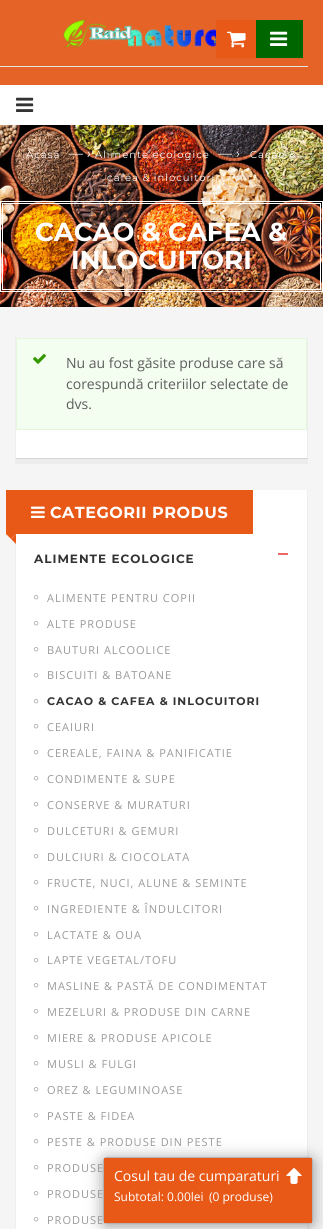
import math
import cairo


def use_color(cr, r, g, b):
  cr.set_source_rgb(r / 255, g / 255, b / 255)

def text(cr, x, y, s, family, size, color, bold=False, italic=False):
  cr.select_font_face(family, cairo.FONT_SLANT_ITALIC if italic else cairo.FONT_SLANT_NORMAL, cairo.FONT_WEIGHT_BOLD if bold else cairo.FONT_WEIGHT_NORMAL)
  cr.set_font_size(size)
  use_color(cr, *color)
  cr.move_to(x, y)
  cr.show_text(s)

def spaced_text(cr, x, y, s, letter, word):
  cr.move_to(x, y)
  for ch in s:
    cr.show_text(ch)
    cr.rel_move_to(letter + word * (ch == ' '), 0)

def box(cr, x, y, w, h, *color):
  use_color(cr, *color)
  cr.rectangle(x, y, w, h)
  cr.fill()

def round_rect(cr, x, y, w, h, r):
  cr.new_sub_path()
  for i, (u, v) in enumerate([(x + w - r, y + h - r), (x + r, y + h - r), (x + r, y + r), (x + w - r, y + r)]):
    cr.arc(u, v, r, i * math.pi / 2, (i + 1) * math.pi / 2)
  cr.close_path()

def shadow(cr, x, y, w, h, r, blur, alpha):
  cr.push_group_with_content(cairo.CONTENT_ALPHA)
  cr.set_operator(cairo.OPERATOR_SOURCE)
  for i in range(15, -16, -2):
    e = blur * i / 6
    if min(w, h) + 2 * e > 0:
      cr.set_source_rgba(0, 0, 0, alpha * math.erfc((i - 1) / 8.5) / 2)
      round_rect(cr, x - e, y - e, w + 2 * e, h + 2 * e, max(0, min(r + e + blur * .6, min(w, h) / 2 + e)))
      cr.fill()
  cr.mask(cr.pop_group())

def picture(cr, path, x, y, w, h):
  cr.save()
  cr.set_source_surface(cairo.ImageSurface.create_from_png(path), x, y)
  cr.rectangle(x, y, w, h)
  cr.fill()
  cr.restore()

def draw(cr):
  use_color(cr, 245, 245, 245)
  cr.paint()
  box(cr, 0, 0, 323, 85, 229, 99, 39)
  box(cr, 0, 66, 308, 1, 229, 229, 229)
  picture(cr, "img_01.png", 63, 19, 153, 29)
  box(cr, 216, 20, 40, 38, 232, 89, 23)
  picture(cr, "img_02.png", 227, 31, 19, 17)
  box(cr, 256, 20, 47, 38, 0, 102, 0)
  picture(cr, "img_03.png", 270, 31, 18, 15)
  box(cr, 0, 85, 323, 40, 255, 255, 255)
  picture(cr, "img_04.png", 16, 97, 18, 15)
  picture(cr, "img_05.png", 0, 125, 323, 182)
  cr.rectangle(0.5, 201.5, 322, 90)
  cr.set_line_width(1)
  cr.stroke()
  cr.rectangle(2.5, 203.5, 318, 86)
  cr.stroke()
  box(cr, 15, 459, 293, 5, 236, 236, 236)
  box(cr, 16, 430, 291, 28, 255, 255, 255)
  box(cr, 307, 337, 1, 122, 238, 238, 238)
  box(cr, 15, 458, 293, 1, 213, 213, 213)
  box(cr, 15, 337, 1, 122, 238, 238, 238)
  use_color(cr, 243, 253, 240)
  cr.rectangle(16.5, 338.5, 290, 91)
  cr.fill_preserve()
  use_color(cr, 226, 247, 219)
  cr.stroke()
  picture(cr, "img_06.png", 33, 354, 13, 10)
  box(cr, 16, 490, 291, 739, 255, 255, 255)
  box(cr, 307, 489, 1, 740, 238, 238, 238)
  box(cr, 15, 489, 1, 740, 238, 238, 238)
  box(cr, 6, 490, 247, 44, 232, 89, 23)
  picture(cr, "img_07.png", 31, 506, 14, 12)
  use_color(cr, 232, 89, 24)
  cr.new_path()
  cr.move_to(6, 534)
  cr.line_to(16, 534)
  cr.line_to(11, 539)
  cr.close_path()
  cr.fill()
  cr.new_path()
  cr.move_to(16, 534)
  cr.line_to(16, 544)
  cr.line_to(11, 539)
  cr.close_path()
  cr.fill()
  box(cr, 278, 553, 10, 2, 237, 102, 99)
  picture(cr, "img_08.png", 34, 595, 5, 5)
  picture(cr, "img_08.png", 34, 621, 5, 5)
  picture(cr, "img_08.png", 34, 647, 5, 5)
  picture(cr, "img_08.png", 34, 673, 5, 5)
  picture(cr, "img_08.png", 34, 699, 5, 5)
  picture(cr, "img_08.png", 34, 724, 5, 5)
  picture(cr, "img_08.png", 34, 750, 5, 5)
  picture(cr, "img_08.png", 34, 776, 5, 5)
  picture(cr, "img_08.png", 34, 802, 5, 5)
  picture(cr, "img_08.png", 34, 828, 5, 5)
  picture(cr, "img_08.png", 34, 854, 5, 5)
  picture(cr, "img_08.png", 34, 880, 5, 5)
  picture(cr, "img_08.png", 34, 906, 5, 5)
  picture(cr, "img_08.png", 34, 932, 5, 5)
  picture(cr, "img_08.png", 34, 958, 5, 5)
  picture(cr, "img_08.png", 34, 983, 5, 5)
  picture(cr, "img_08.png", 34, 1009, 5, 5)
  picture(cr, "img_08.png", 34, 1035, 5, 5)
  picture(cr, "img_08.png", 34, 1061, 5, 5)
  picture(cr, "img_08.png", 34, 1087, 5, 5)
  picture(cr, "img_08.png", 34, 1113, 5, 5)
  picture(cr, "img_08.png", 34, 1139, 5, 5)
  picture(cr, "img_08.png", 34, 1165, 5, 5)
  picture(cr, "img_08.png", 34, 1191, 5, 5)
  picture(cr, "img_08.png", 34, 1217, 5, 5)
  use_color(cr, 0, 0, 0)
  shadow(cr, 103, 1159, 210, 67, 4, 8, 0.4)
  round_rect(cr, 103.5, 1157.5, 209, 66, 3.5)
  use_color(cr, 179, 179, 179)
  cr.stroke()
  box(cr, 104, 1158, 208, 65, 232, 89, 23)
  picture(cr, "img_09.png", 286, 1168, 16, 16)
  cr.select_font_face("Montserrat")
  cr.set_font_size(10)
  use_color(cr, 255, 255, 255)
  spaced_text(cr, 26, 158, "Acasă", 1, 0)
  text(cr, 69, 158, "— ›", "Montserrat", 14, (255, 255, 255))
  cr.set_font_size(10)
  spaced_text(cr, 95, 158, "Alimente ecologice", 1, 0)
  text(cr, 218, 158, "— ›", "Montserrat", 14, (255, 255, 255))
  cr.set_font_size(10)
  spaced_text(cr, 250, 158, "Cacao &", 1, 0)
  spaced_text(cr, 107, 181, "cafea & inlocuitori", 1, 0)
  text(cr, 35, 241, "CACAO & CAFEA &", "Montserrat", 26, (255, 255, 255), bold=True)
  text(cr, 71, 269, "INLOCUITORI", "Montserrat", 26, (255, 255, 255), bold=True)
  text(cr, 66, 368, "Nu au fost găsite produse care să", "Open Sans", 14, (94, 94, 94))
  text(cr, 66, 389, "corespundă criteriilor selectate de", "Open Sans", 14, (94, 94, 94))
  text(cr, 66, 409, "dvs.", "Open Sans", 14, (94, 94, 94))
  cr.select_font_face("Montserrat", cairo.FONT_SLANT_NORMAL, cairo.FONT_WEIGHT_BOLD)
  cr.set_font_size(16)
  use_color(cr, 255, 255, 255)
  spaced_text(cr, 50, 518, "CATEGORII PRODUS", 0.5, 0)
  cr.set_font_size(12)
  use_color(cr, 51, 51, 51)
  spaced_text(cr, 34, 563, "ALIMENTE ECOLOGICE", 1, 0)
  cr.select_font_face("Open Sans")
  cr.set_font_size(11)
  use_color(cr, 153, 153, 153)
  spaced_text(cr, 47, 602, "ALIMENTE PENTRU COPII", 1, 0)
  spaced_text(cr, 47, 628, "ALTE PRODUSE", 1, 0)
  spaced_text(cr, 47, 654, "BAUTURI ALCOOLICE", 1, 0)
  spaced_text(cr, 47, 679, "BISCUITI & BATOANE", 1, 0)
  cr.select_font_face("Montserrat", cairo.FONT_SLANT_NORMAL, cairo.FONT_WEIGHT_BOLD)
  use_color(cr, 51, 51, 51)
  spaced_text(cr, 47, 705, "CACAO & CAFEA & INLOCUITORI", 1, 0)
  cr.select_font_face("Open Sans")
  use_color(cr, 153, 153, 153)
  spaced_text(cr, 47, 731, "CEAIURI", 1, 0)
  spaced_text(cr, 47, 757, "CEREALE, FAINA & PANIFICATIE", 1, 0)
  spaced_text(cr, 47, 783, "CONDIMENTE & SUPE", 1, 0)
  spaced_text(cr, 47, 809, "CONSERVE & MURATURI", 1, 0)
  spaced_text(cr, 47, 835, "DULCETURI & GEMURI", 1, 0)
  spaced_text(cr, 47, 861, "DULCIURI & CIOCOLATA", 1, 0)
  spaced_text(cr, 47, 887, "FRUCTE, NUCI, ALUNE & SEMINTE", 1, 0)
  spaced_text(cr, 47, 913, "INGREDIENTE & ÎNDULCITORI", 1, 0)
  spaced_text(cr, 47, 939, "LACTATE & OUA", 1, 0)
  spaced_text(cr, 47, 964, "LAPTE VEGETAL/TOFU", 1, 0)
  spaced_text(cr, 47, 990, "MASLINE & PASTĂ DE CONDIMENTAT", 1, 0)
  spaced_text(cr, 47, 1016, "MEZELURI & PRODUSE DIN CARNE", 1, 0)
  spaced_text(cr, 47, 1042, "MIERE & PRODUSE APICOLE", 1, 0)
  spaced_text(cr, 47, 1068, "MUSLI & FULGI", 1, 0)
  spaced_text(cr, 47, 1094, "OREZ & LEGUMINOASE", 1, 0)
  spaced_text(cr, 47, 1120, "PASTE & FIDEA", 1, 0)
  spaced_text(cr, 47, 1146, "PESTE & PRODUSE DIN PESTE", 1, 0)
  spaced_text(cr, 47, 1172, "PRODUSE", 1, 0)
  spaced_text(cr, 47, 1198, "PRODUSE", 1, 0)
  spaced_text(cr, 47, 1224, "PRODUSE", 1, 0)
  text(cr, 114, 1181, "Cosul tau de cumparaturi", "Open Sans", 14, (255, 255, 255))
  text(cr, 114, 1201, "Subtotal: 0.00lei", "Open Sans", 12, (255, 255, 255))
  text(cr, 209, 1201, "(0 produse)", "Open Sans", 12, (255, 255, 255))


surface = cairo.ImageSurface(cairo.FORMAT_RGB24, 323, 1229)
cr = cairo.Context(surface)
options = cairo.FontOptions()
options.set_hint_metrics(cairo.HINT_METRICS_OFF)
options.set_hint_style(cairo.HINT_STYLE_NONE)
cr.set_font_options(options)
cr.set_miter_limit(4)
draw(cr)
surface.write_to_png("out.png")
